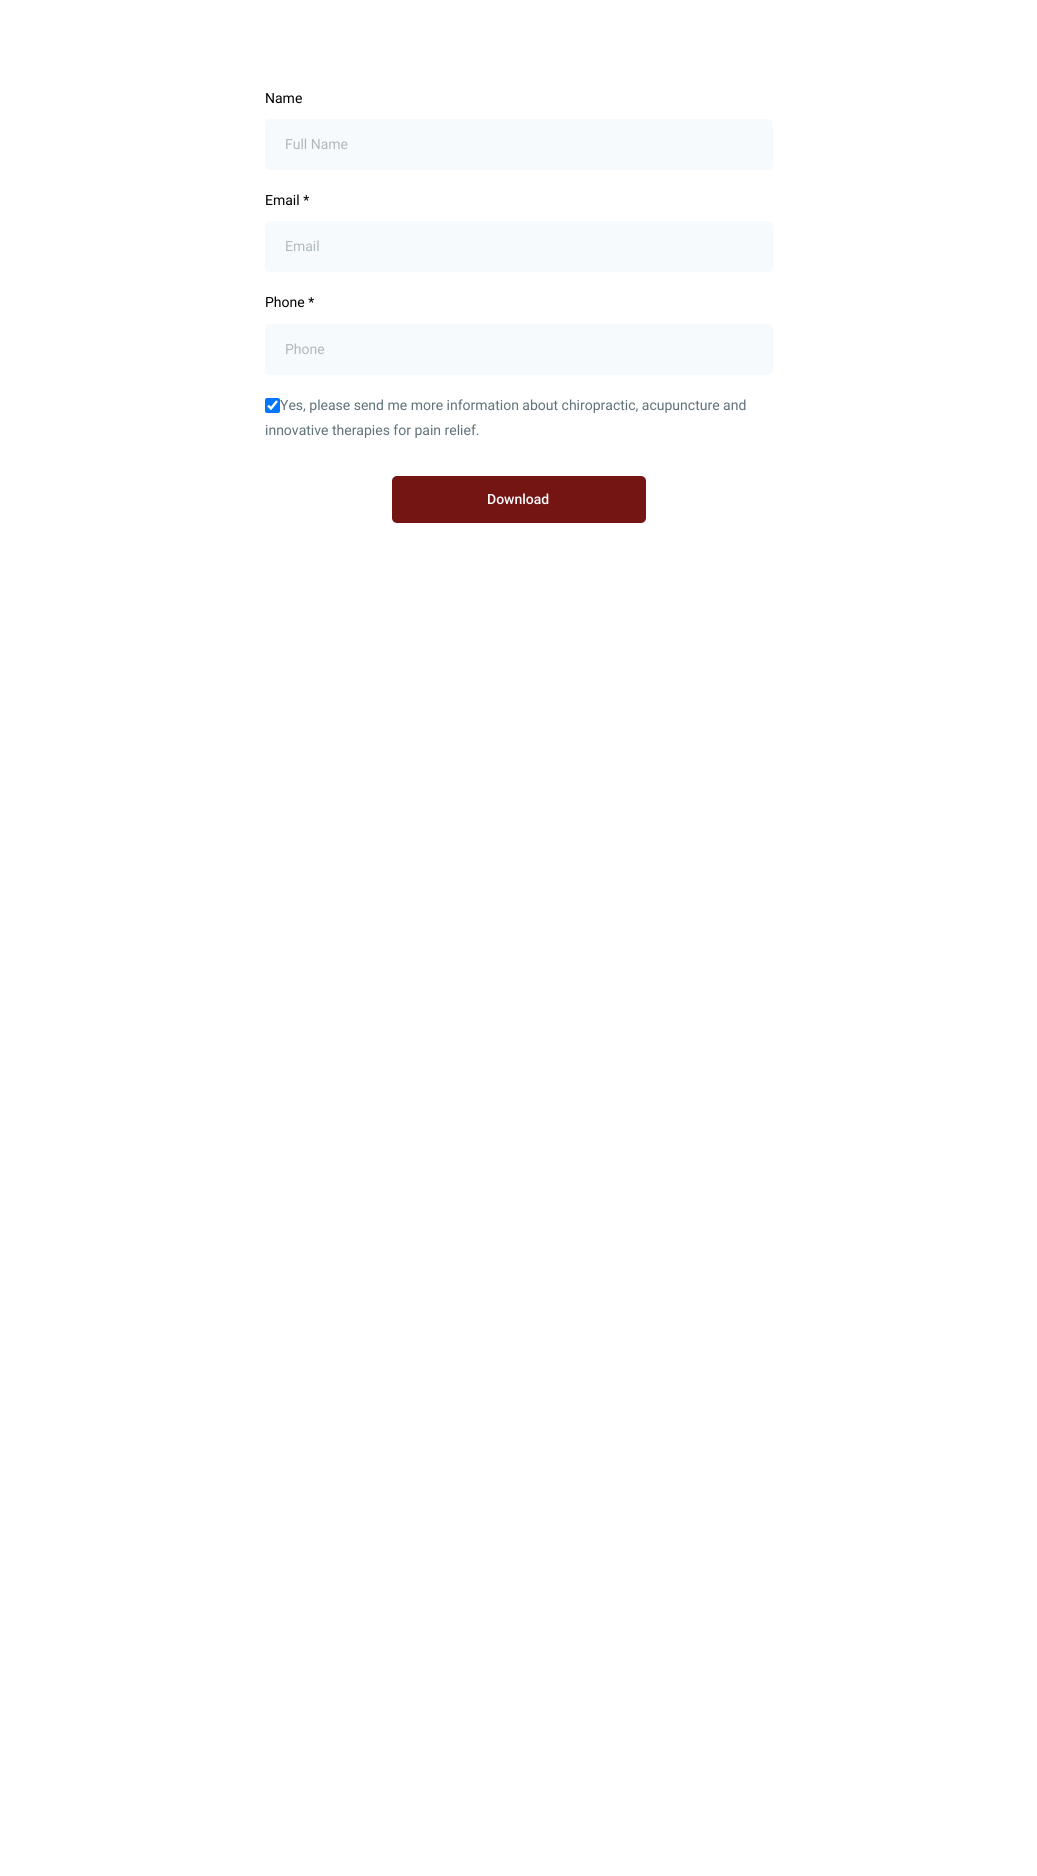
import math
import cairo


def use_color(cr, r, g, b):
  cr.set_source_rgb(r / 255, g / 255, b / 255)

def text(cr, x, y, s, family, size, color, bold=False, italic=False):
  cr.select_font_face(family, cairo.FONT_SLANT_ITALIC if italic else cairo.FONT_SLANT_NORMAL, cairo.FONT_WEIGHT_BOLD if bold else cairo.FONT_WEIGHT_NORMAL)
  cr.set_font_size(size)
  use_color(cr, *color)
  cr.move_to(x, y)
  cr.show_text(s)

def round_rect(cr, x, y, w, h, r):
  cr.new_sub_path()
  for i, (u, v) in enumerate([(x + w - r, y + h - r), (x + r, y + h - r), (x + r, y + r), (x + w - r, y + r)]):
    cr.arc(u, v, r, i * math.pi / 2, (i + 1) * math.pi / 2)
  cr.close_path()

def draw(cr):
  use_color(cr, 255, 255, 255)
  cr.paint()
  use_color(cr, 247, 250, 252)
  round_rect(cr, 265, 119, 508, 51, 5)
  cr.fill()
  round_rect(cr, 265, 221, 508, 51, 5)
  cr.fill()
  round_rect(cr, 265, 324, 508, 51, 5)
  cr.fill()
  use_color(cr, 0, 117, 255)
  round_rect(cr, 265, 398, 15, 15, 2)
  cr.fill()
  cr.new_path()
  cr.move_to(268, 405.5)
  cr.line_to(271, 408.5)
  cr.line_to(277, 401)
  use_color(cr, 255, 255, 255)
  cr.set_line_width(2.4)
  cr.stroke()
  use_color(cr, 116, 21, 20)
  round_rect(cr, 392, 476, 254, 47, 5)
  cr.fill()
  text(cr, 265, 103, "Name", "Roboto", 14, (0, 0, 0))
  text(cr, 285, 149, "Full Name", "Roboto", 14, (175, 184, 188))
  text(cr, 265, 205, "Email *", "Roboto", 14, (0, 0, 0))
  text(cr, 285, 251, "Email", "Roboto", 14, (175, 184, 188))
  text(cr, 265, 307, "Phone *", "Roboto", 14, (0, 0, 0))
  text(cr, 285, 354, "Phone", "Roboto", 14, (175, 184, 188))
  text(cr, 280, 410, "Yes, please send me more information about chiropractic, acupuncture and", "Roboto", 14, (96, 113, 121))
  text(cr, 265, 435, "innovative therapies for pain relief.", "Roboto", 14, (96, 113, 121))
  text(cr, 487, 504, "Download", "Roboto Medium", 14, (255, 255, 255))


surface = cairo.ImageSurface(cairo.FORMAT_RGB24, 1037, 1876)
cr = cairo.Context(surface)
options = cairo.FontOptions()
options.set_hint_metrics(cairo.HINT_METRICS_OFF)
options.set_hint_style(cairo.HINT_STYLE_NONE)
cr.set_font_options(options)
cr.set_miter_limit(4)
draw(cr)
surface.write_to_png("out.png")
